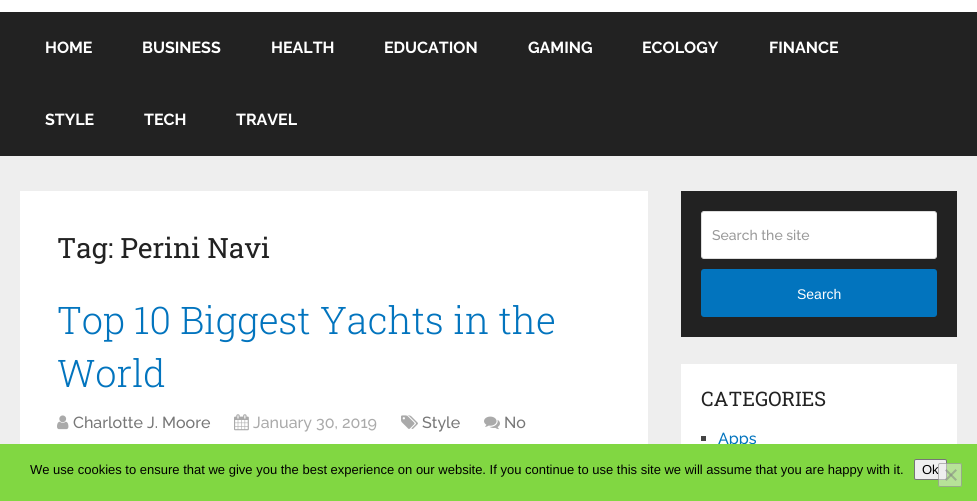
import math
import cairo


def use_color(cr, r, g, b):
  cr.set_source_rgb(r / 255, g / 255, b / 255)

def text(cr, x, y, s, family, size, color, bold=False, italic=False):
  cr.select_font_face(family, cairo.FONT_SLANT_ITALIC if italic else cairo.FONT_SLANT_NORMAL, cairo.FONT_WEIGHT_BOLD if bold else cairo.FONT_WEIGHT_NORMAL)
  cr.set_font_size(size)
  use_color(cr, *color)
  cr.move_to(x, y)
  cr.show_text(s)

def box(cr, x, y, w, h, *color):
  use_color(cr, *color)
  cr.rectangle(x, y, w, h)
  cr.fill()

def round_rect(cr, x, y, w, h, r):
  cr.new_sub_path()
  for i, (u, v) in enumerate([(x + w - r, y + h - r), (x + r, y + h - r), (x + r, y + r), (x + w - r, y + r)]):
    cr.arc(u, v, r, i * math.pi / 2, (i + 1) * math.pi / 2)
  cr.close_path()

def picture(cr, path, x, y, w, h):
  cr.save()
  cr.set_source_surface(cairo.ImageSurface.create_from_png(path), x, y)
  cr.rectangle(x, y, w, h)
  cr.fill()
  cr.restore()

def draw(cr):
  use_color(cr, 238, 238, 238)
  cr.paint()
  box(cr, 0, 0, 977, 12, 255, 255, 255)
  box(cr, 0, 12, 977, 144, 34, 34, 34)
  box(cr, 20, 191, 628, 253, 255, 255, 255)
  picture(cr, "img_01.png", 57, 415, 12, 15)
  picture(cr, "img_02.png", 234, 414, 15, 17)
  picture(cr, "img_03.png", 401, 415, 17, 14)
  picture(cr, "img_04.png", 484, 416, 16, 14)
  box(cr, 681, 191, 276, 146, 34, 34, 34)
  use_color(cr, 255, 255, 255)
  round_rect(cr, 701.5, 211.5, 235, 47, 2.5)
  cr.fill_preserve()
  use_color(cr, 221, 221, 221)
  cr.set_line_width(1)
  cr.stroke()
  use_color(cr, 2, 116, 190)
  round_rect(cr, 701, 269, 236, 48, 3)
  cr.fill()
  box(cr, 681, 364, 276, 80, 255, 255, 255)
  box(cr, 701, 436, 5, 5, 68, 68, 68)
  text(cr, 45, 53, "HOME", "Raleway", 16, (255, 255, 255), bold=True)
  text(cr, 142, 53, "BUSINESS", "Raleway", 16, (255, 255, 255), bold=True)
  text(cr, 271, 53, "HEALTH", "Raleway", 16, (255, 255, 255), bold=True)
  text(cr, 384, 53, "EDUCATION", "Raleway", 16, (255, 255, 255), bold=True)
  text(cr, 528, 53, "GAMING", "Raleway", 16, (255, 255, 255), bold=True)
  text(cr, 642, 53, "ECOLOGY", "Raleway", 16, (255, 255, 255), bold=True)
  text(cr, 769, 53, "FINANCE", "Raleway", 16, (255, 255, 255), bold=True)
  text(cr, 45, 125, "STYLE", "Raleway", 16, (255, 255, 255), bold=True)
  text(cr, 144, 125, "TECH", "Raleway", 16, (255, 255, 255), bold=True)
  text(cr, 236, 125, "TRAVEL", "Raleway", 16, (255, 255, 255), bold=True)
  text(cr, 57, 258, "Tag: Perini Navi", "Roboto Slab", 28, (34, 34, 34))
  text(cr, 57, 334, "Top 10 Biggest Yachts in the", "Roboto Slab Light", 38, (2, 116, 190))
  text(cr, 57, 387, "World", "Roboto Slab Light", 38, (2, 116, 190))
  text(cr, 73, 428, "Charlotte J. Moore", "Raleway Medium", 16, (119, 119, 119))
  text(cr, 253, 428, "January 30, 2019", "Raleway Medium", 16, (170, 170, 170))
  text(cr, 422, 428, "Style", "Raleway Medium", 16, (119, 119, 119))
  text(cr, 504, 428, "No", "Raleway Medium", 16, (119, 119, 119))
  text(cr, 712, 240, "Search the site", "Raleway Medium", 14, (153, 153, 153))
  text(cr, 797, 299, "Search", "Liberation Sans", 14, (255, 255, 255))
  text(cr, 701, 406, "CATEGORIES", "Roboto Slab", 20, (34, 34, 34))
  text(cr, 718, 444, "Apps", "Raleway Medium", 16, (2, 116, 190))
  box(cr, 0, 444, 977, 57, 129, 215, 66)
  text(cr, 30, 474, "We use cookies to ensure that we give you the best experience on our website. If you continue to use this site we will assume that you are happy with it.", "Liberation Sans", 13, (0, 0, 0))
  use_color(cr, 239, 239, 239)
  round_rect(cr, 914.5, 459.5, 32, 20, 1.5)
  cr.fill_preserve()
  use_color(cr, 118, 118, 118)
  cr.stroke()
  text(cr, 922, 474, "Ok", "Liberation Sans", 13, (0, 0, 0))
  cr.set_source_rgba(0.937, 0.937, 0.937, 0.5)
  round_rect(cr, 938, 463, 24, 24, 2)
  cr.fill()
  round_rect(cr, 938.5, 463.5, 23, 23, 1.5)
  cr.set_source_rgba(0.463, 0.463, 0.463, 0.5)
  cr.stroke()
  cr.set_source_rgba(0.502, 0.502, 0.502, 0.5)
  cr.new_path()
  cr.move_to(955.5, 469)
  cr.line_to(957, 470.5)
  cr.line_to(946.5, 481)
  cr.line_to(945, 479.5)
  cr.close_path()
  cr.fill()
  cr.new_path()
  cr.move_to(945, 470.5)
  cr.line_to(946.5, 469)
  cr.line_to(957, 479.5)
  cr.line_to(955.5, 481)
  cr.close_path()
  cr.fill()


surface = cairo.ImageSurface(cairo.FORMAT_RGB24, 977, 501)
cr = cairo.Context(surface)
options = cairo.FontOptions()
options.set_hint_metrics(cairo.HINT_METRICS_OFF)
options.set_hint_style(cairo.HINT_STYLE_NONE)
cr.set_font_options(options)
cr.set_miter_limit(4)
draw(cr)
surface.write_to_png("out.png")
